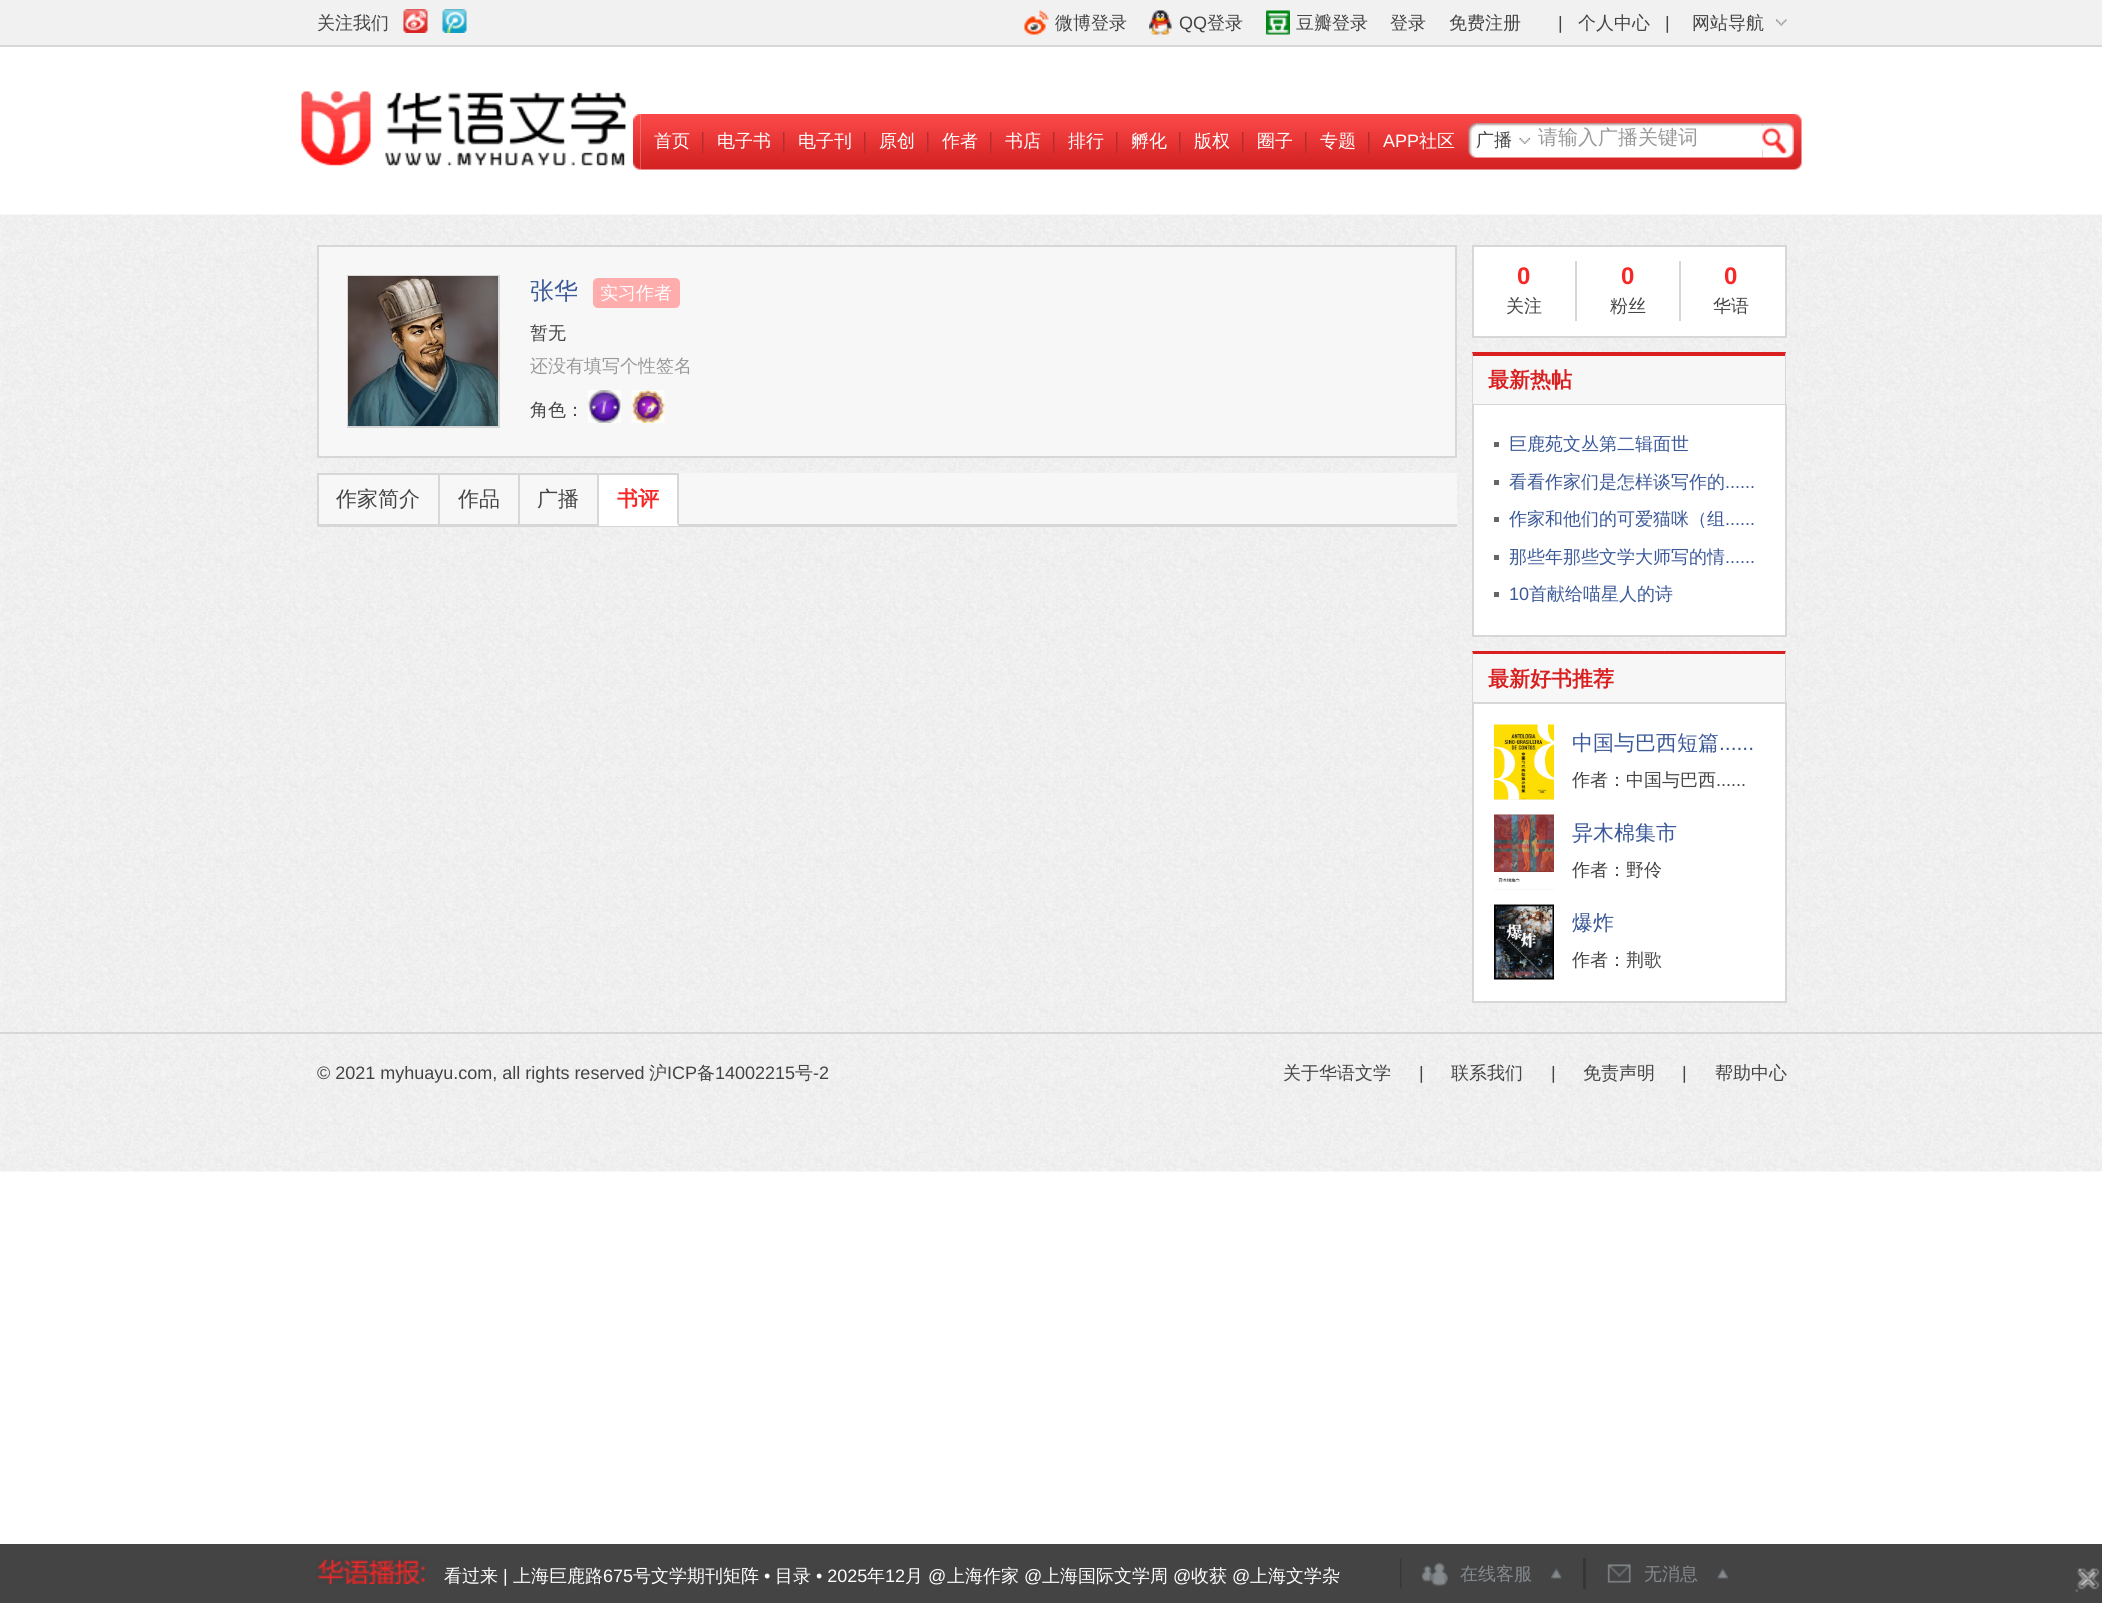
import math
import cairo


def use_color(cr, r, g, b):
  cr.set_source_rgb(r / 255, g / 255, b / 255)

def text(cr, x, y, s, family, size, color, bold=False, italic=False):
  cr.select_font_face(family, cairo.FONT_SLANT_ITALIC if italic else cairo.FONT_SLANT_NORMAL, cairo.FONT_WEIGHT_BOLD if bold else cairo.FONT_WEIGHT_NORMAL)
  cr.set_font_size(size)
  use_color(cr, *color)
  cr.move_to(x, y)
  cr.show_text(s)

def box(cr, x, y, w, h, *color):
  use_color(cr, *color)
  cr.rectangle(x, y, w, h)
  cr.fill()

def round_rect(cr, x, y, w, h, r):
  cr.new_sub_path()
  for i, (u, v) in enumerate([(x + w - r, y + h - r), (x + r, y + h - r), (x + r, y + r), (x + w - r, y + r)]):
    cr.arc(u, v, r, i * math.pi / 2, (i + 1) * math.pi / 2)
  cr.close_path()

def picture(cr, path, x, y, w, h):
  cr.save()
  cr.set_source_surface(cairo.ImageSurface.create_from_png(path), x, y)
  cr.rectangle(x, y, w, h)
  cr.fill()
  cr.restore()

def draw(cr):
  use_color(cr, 255, 255, 255)
  cr.paint()
  box(cr, 0, 0, 2102, 45, 241, 241, 241)
  box(cr, 0, 45, 2102, 2, 215, 215, 215)
  picture(cr, "img_01.png", 403, 9, 25, 24)
  picture(cr, "img_02.png", 442, 9, 25, 24)
  picture(cr, "img_03.png", 1024, 10, 25, 25)
  picture(cr, "img_04.png", 1149, 10, 23, 25)
  picture(cr, "img_05.png", 1266, 10, 24, 25)
  picture(cr, "img_06.png", 1776, 19, 11, 7)
  picture(cr, "img_07.png", 301, 91, 325, 75)
  picture(cr, "img_08.png", 633, 114, 8, 56)
  picture(cr, "img_09.png", 640, 114, 1154, 56)
  picture(cr, "img_10.png", 702, 132, 2, 21)
  picture(cr, "img_10.png", 783, 132, 2, 21)
  picture(cr, "img_10.png", 864, 132, 2, 21)
  picture(cr, "img_10.png", 927, 132, 2, 21)
  picture(cr, "img_10.png", 990, 132, 2, 21)
  picture(cr, "img_10.png", 1053, 132, 2, 21)
  picture(cr, "img_10.png", 1116, 132, 2, 21)
  picture(cr, "img_10.png", 1179, 132, 2, 21)
  picture(cr, "img_10.png", 1242, 132, 2, 21)
  picture(cr, "img_10.png", 1305, 132, 2, 21)
  picture(cr, "img_10.png", 1368, 132, 2, 21)
  picture(cr, "img_11.png", 1468, 123, 8, 35)
  picture(cr, "img_12.png", 1476, 123, 54, 35)
  picture(cr, "img_13.png", 1519, 138, 11, 6)
  picture(cr, "img_14.png", 1530, 123, 233, 35)
  box(cr, 1538, 126, 225, 24, 255, 255, 255)
  picture(cr, "img_15.png", 1762, 123, 32, 35)
  picture(cr, "img_16.png", 1794, 114, 8, 56)
  picture(cr, "img_17.png", 0, 214, 2102, 958)
  use_color(cr, 247, 247, 247)
  cr.rectangle(318, 246, 1138, 211)
  cr.fill_preserve()
  use_color(cr, 215, 215, 215)
  cr.stroke()
  cr.rectangle(348, 276, 151, 151)
  cr.stroke()
  picture(cr, "img_18.png", 348, 276, 150, 150)
  use_color(cr, 255, 172, 172)
  round_rect(cr, 593, 278, 87, 30, 5)
  cr.fill()
  picture(cr, "img_19.png", 588, 390, 33, 33)
  picture(cr, "img_20.png", 631, 390, 34, 33)
  box(cr, 319, 473, 1138, 51, 247, 247, 247)
  box(cr, 317, 524, 1140, 3, 215, 215, 215)
  box(cr, 317, 473, 2, 52, 215, 215, 215)
  box(cr, 318, 473, 201, 2, 215, 215, 215)
  box(cr, 438, 473, 2, 52, 215, 215, 215)
  box(cr, 518, 473, 2, 52, 215, 215, 215)
  box(cr, 519, 473, 159, 2, 215, 215, 215)
  box(cr, 597, 473, 2, 52, 215, 215, 215)
  box(cr, 599, 475, 78, 49, 255, 255, 255)
  box(cr, 677, 473, 2, 52, 215, 215, 215)
  box(cr, 599, 524, 79, 2, 255, 255, 255)
  cr.rectangle(1473, 246, 313, 91)
  cr.fill_preserve()
  use_color(cr, 215, 215, 215)
  cr.stroke()
  box(cr, 1575, 261, 2, 60, 215, 215, 215)
  box(cr, 1679, 261, 2, 60, 215, 215, 215)
  box(cr, 1473, 356, 312, 48, 247, 247, 247)
  use_color(cr, 217, 31, 31)
  cr.new_path()
  cr.move_to(1472, 352)
  cr.line_to(1786, 352)
  cr.line_to(1785, 356)
  cr.line_to(1473, 356)
  cr.close_path()
  cr.fill()
  use_color(cr, 215, 215, 215)
  cr.new_path()
  cr.move_to(1786, 352)
  cr.line_to(1786, 405)
  cr.line_to(1785, 404)
  cr.line_to(1785, 356)
  cr.close_path()
  cr.fill()
  box(cr, 1472, 404, 315, 1, 215, 215, 215)
  cr.new_path()
  cr.move_to(1472, 405)
  cr.line_to(1472, 352)
  cr.line_to(1473, 356)
  cr.line_to(1473, 404)
  cr.close_path()
  cr.fill()
  box(cr, 1474, 405, 311, 230, 255, 255, 255)
  box(cr, 1785, 405, 2, 231, 215, 215, 215)
  box(cr, 1472, 635, 315, 2, 215, 215, 215)
  box(cr, 1472, 405, 2, 231, 215, 215, 215)
  box(cr, 1494, 442, 5, 5, 102, 102, 102)
  box(cr, 1494, 480, 5, 5, 102, 102, 102)
  box(cr, 1494, 517, 5, 5, 102, 102, 102)
  box(cr, 1494, 555, 5, 5, 102, 102, 102)
  box(cr, 1494, 592, 5, 5, 102, 102, 102)
  box(cr, 1473, 654, 312, 48, 247, 247, 247)
  use_color(cr, 217, 31, 31)
  cr.new_path()
  cr.move_to(1472, 651)
  cr.line_to(1786, 651)
  cr.line_to(1785, 654)
  cr.line_to(1473, 654)
  cr.close_path()
  cr.fill()
  use_color(cr, 215, 215, 215)
  cr.new_path()
  cr.move_to(1786, 651)
  cr.line_to(1786, 704)
  cr.line_to(1785, 702)
  cr.line_to(1785, 654)
  cr.close_path()
  cr.fill()
  box(cr, 1472, 702, 315, 2, 215, 215, 215)
  cr.new_path()
  cr.move_to(1472, 704)
  cr.line_to(1472, 651)
  cr.line_to(1473, 654)
  cr.line_to(1473, 702)
  cr.close_path()
  cr.fill()
  box(cr, 1474, 704, 311, 297, 255, 255, 255)
  box(cr, 1785, 704, 2, 298, 215, 215, 215)
  box(cr, 1472, 1001, 315, 2, 215, 215, 215)
  box(cr, 1472, 704, 2, 298, 215, 215, 215)
  box(cr, 1494, 799, 60, 1, 238, 238, 238)
  picture(cr, "img_21.png", 1494, 724, 60, 76)
  box(cr, 1494, 889, 60, 1, 238, 238, 238)
  picture(cr, "img_22.png", 1494, 814, 60, 76)
  box(cr, 1494, 979, 60, 1, 238, 238, 238)
  picture(cr, "img_23.png", 1494, 904, 60, 76)
  box(cr, 0, 1032, 2102, 2, 215, 215, 215)
  box(cr, 0, 1544, 2102, 59, 68, 68, 68)
  picture(cr, "img_24.png", 317, 1558, 108, 26)
  picture(cr, "img_25.png", 1400, 1558, 2, 31)
  picture(cr, "img_26.png", 1551, 1568, 11, 11)
  picture(cr, "img_27.png", 1422, 1562, 26, 24)
  box(cr, 1583, 1558, 3, 31, 53, 54, 56)
  picture(cr, "img_28.png", 1717, 1568, 11, 11)
  picture(cr, "img_29.png", 1607, 1564, 24, 19)
  picture(cr, "img_30.png", 2075, 1568, 25, 25)
  text(cr, 317, 29, "关注我们", "WenQuanYi Zen Hei Medium", 18, (68, 68, 68))
  text(cr, 1055, 29, "微博登录", "WenQuanYi Zen Hei Medium", 18, (68, 68, 68))
  text(cr, 1179, 29, "QQ", "Liberation Sans", 18, (68, 68, 68))
  text(cr, 1207, 29, "登录", "WenQuanYi Zen Hei Medium", 18, (68, 68, 68))
  text(cr, 1296, 29, "豆瓣登录", "WenQuanYi Zen Hei Medium", 18, (68, 68, 68))
  text(cr, 1390, 29, "登录", "WenQuanYi Zen Hei Medium", 18, (68, 68, 68))
  text(cr, 1449, 29, "免费注册", "WenQuanYi Zen Hei Medium", 18, (68, 68, 68))
  text(cr, 1558, 29, "|", "Liberation Sans", 18, (68, 68, 68))
  text(cr, 1578, 29, "个人中心", "WenQuanYi Zen Hei Medium", 18, (68, 68, 68))
  text(cr, 1665, 29, "|", "Liberation Sans", 18, (68, 68, 68))
  text(cr, 1692, 29, "网站导航", "WenQuanYi Zen Hei Medium", 18, (68, 68, 68))
  text(cr, 654, 147, "首页", "WenQuanYi Zen Hei Medium", 18, (255, 255, 255))
  text(cr, 717, 147, "电子书", "WenQuanYi Zen Hei Medium", 18, (255, 255, 255))
  text(cr, 798, 147, "电子刊", "WenQuanYi Zen Hei Medium", 18, (255, 255, 255))
  text(cr, 879, 147, "原创", "WenQuanYi Zen Hei Medium", 18, (255, 255, 255))
  text(cr, 942, 147, "作者", "WenQuanYi Zen Hei Medium", 18, (255, 255, 255))
  text(cr, 1005, 147, "书店", "WenQuanYi Zen Hei Medium", 18, (255, 255, 255))
  text(cr, 1068, 147, "排行", "WenQuanYi Zen Hei Medium", 18, (255, 255, 255))
  text(cr, 1131, 147, "孵化", "WenQuanYi Zen Hei Medium", 18, (255, 255, 255))
  text(cr, 1194, 147, "版权", "WenQuanYi Zen Hei Medium", 18, (255, 255, 255))
  text(cr, 1257, 147, "圈子", "WenQuanYi Zen Hei Medium", 18, (255, 255, 255))
  text(cr, 1320, 147, "专题", "WenQuanYi Zen Hei Medium", 18, (255, 255, 255))
  text(cr, 1383, 147, "APP", "Liberation Sans", 18, (255, 255, 255))
  text(cr, 1419, 147, "社区", "WenQuanYi Zen Hei Medium", 18, (255, 255, 255))
  text(cr, 1476, 146, "广播", "WenQuanYi Zen Hei Medium", 18, (68, 68, 68))
  text(cr, 1538, 144, "请输入广播关键词", "WenQuanYi Zen Hei Medium", 20, (153, 153, 153))
  text(cr, 530, 299, "张华", "WenQuanYi Zen Hei Medium", 24, (59, 89, 152))
  text(cr, 600, 299, "实习作者", "WenQuanYi Zen Hei Medium", 18, (255, 255, 255))
  text(cr, 530, 339, "暂无", "WenQuanYi Zen Hei Medium", 18, (68, 68, 68))
  text(cr, 530, 372, "还没有填写个性签名", "WenQuanYi Zen Hei Medium", 18, (153, 153, 153))
  text(cr, 530, 416, "角色：", "WenQuanYi Zen Hei Medium", 18, (68, 68, 68))
  text(cr, 336, 506, "作家简介", "WenQuanYi Zen Hei Medium", 21, (68, 68, 68))
  text(cr, 458, 506, "作品", "WenQuanYi Zen Hei Medium", 21, (68, 68, 68))
  text(cr, 537, 506, "广播", "WenQuanYi Zen Hei Medium", 21, (68, 68, 68))
  text(cr, 617, 506, "书评", "WenQuanYi Zen Hei", 21, (248, 39, 39), bold=True)
  text(cr, 1517, 284, "0", "Liberation Sans", 24, (248, 39, 39), bold=True)
  text(cr, 1506, 312, "关注", "WenQuanYi Zen Hei Medium", 18, (68, 68, 68))
  text(cr, 1621, 284, "0", "Liberation Sans", 24, (248, 39, 39), bold=True)
  text(cr, 1610, 312, "粉丝", "WenQuanYi Zen Hei Medium", 18, (68, 68, 68))
  text(cr, 1724, 284, "0", "Liberation Sans", 24, (248, 39, 39), bold=True)
  text(cr, 1713, 312, "华语", "WenQuanYi Zen Hei Medium", 18, (68, 68, 68))
  text(cr, 1488, 387, "最新热帖", "WenQuanYi Zen Hei", 21, (217, 31, 31), bold=True)
  text(cr, 1509, 450, "巨鹿苑文丛第二辑面世", "WenQuanYi Zen Hei Medium", 18, (59, 89, 152))
  text(cr, 1509, 488, "看看作家们是怎样谈写作的", "WenQuanYi Zen Hei Medium", 18, (59, 89, 152))
  text(cr, 1725, 488, "......", "Liberation Sans", 18, (59, 89, 152))
  text(cr, 1509, 525, "作家和他们的可爱猫咪（组", "WenQuanYi Zen Hei Medium", 18, (59, 89, 152))
  text(cr, 1725, 525, "......", "Liberation Sans", 18, (59, 89, 152))
  text(cr, 1509, 563, "那些年那些文学大师写的情", "WenQuanYi Zen Hei Medium", 18, (59, 89, 152))
  text(cr, 1725, 563, "......", "Liberation Sans", 18, (59, 89, 152))
  text(cr, 1509, 600, "10", "Liberation Sans", 18, (59, 89, 152))
  text(cr, 1529, 600, "首献给喵星人的诗", "WenQuanYi Zen Hei Medium", 18, (59, 89, 152))
  text(cr, 1488, 686, "最新好书推荐", "WenQuanYi Zen Hei", 21, (217, 31, 31), bold=True)
  text(cr, 1572, 750, "中国与巴西短篇", "WenQuanYi Zen Hei Medium", 21, (59, 89, 152))
  text(cr, 1719, 750, "......", "Liberation Sans", 21, (59, 89, 152))
  text(cr, 1572, 786, "作者：中国与巴西", "WenQuanYi Zen Hei Medium", 18, (68, 68, 68))
  text(cr, 1716, 786, "......", "Liberation Sans", 18, (68, 68, 68))
  text(cr, 1572, 840, "异木棉集市", "WenQuanYi Zen Hei Medium", 21, (59, 89, 152))
  text(cr, 1572, 876, "作者：野伶", "WenQuanYi Zen Hei Medium", 18, (68, 68, 68))
  text(cr, 1572, 930, "爆炸", "WenQuanYi Zen Hei Medium", 21, (59, 89, 152))
  text(cr, 1572, 966, "作者：荆歌", "WenQuanYi Zen Hei Medium", 18, (68, 68, 68))
  text(cr, 317, 1079, "© 2021 myhuayu.com, all rights reserved", "Liberation Sans", 18, (68, 68, 68))
  text(cr, 649, 1079, "沪", "WenQuanYi Zen Hei Medium", 18, (68, 68, 68))
  text(cr, 667, 1079, "ICP", "Liberation Sans", 18, (68, 68, 68))
  text(cr, 697, 1079, "备", "WenQuanYi Zen Hei Medium", 18, (68, 68, 68))
  text(cr, 715, 1079, "14002215", "Liberation Sans", 18, (68, 68, 68))
  text(cr, 795, 1079, "号", "WenQuanYi Zen Hei Medium", 18, (68, 68, 68))
  text(cr, 813, 1079, "-2", "Liberation Sans", 18, (68, 68, 68))
  text(cr, 1283, 1079, "关于华语文学", "WenQuanYi Zen Hei Medium", 18, (68, 68, 68))
  text(cr, 1419, 1079, "|", "Liberation Sans", 18, (68, 68, 68))
  text(cr, 1451, 1079, "联系我们", "WenQuanYi Zen Hei Medium", 18, (68, 68, 68))
  text(cr, 1551, 1079, "|", "Liberation Sans", 18, (68, 68, 68))
  text(cr, 1583, 1079, "免责声明", "WenQuanYi Zen Hei Medium", 18, (68, 68, 68))
  text(cr, 1682, 1079, "|", "Liberation Sans", 18, (68, 68, 68))
  text(cr, 1715, 1079, "帮助中心", "WenQuanYi Zen Hei Medium", 18, (68, 68, 68))
  text(cr, 444, 1582, "看过来", "WenQuanYi Zen Hei Medium", 18, (255, 255, 255))
  text(cr, 503, 1582, "|", "Liberation Sans", 18, (255, 255, 255))
  text(cr, 513, 1582, "上海巨鹿路", "WenQuanYi Zen Hei Medium", 18, (255, 255, 255))
  text(cr, 603, 1582, "675", "Liberation Sans", 18, (255, 255, 255))
  text(cr, 633, 1582, "号文学期刊矩阵", "WenQuanYi Zen Hei Medium", 18, (255, 255, 255))
  text(cr, 764, 1582, "•", "Liberation Sans", 18, (255, 255, 255))
  text(cr, 775, 1582, "目录", "WenQuanYi Zen Hei Medium", 18, (255, 255, 255))
  text(cr, 816, 1582, "• 2025", "Liberation Sans", 18, (255, 255, 255))
  text(cr, 867, 1582, "年", "WenQuanYi Zen Hei Medium", 18, (255, 255, 255))
  text(cr, 885, 1582, "12", "Liberation Sans", 18, (255, 255, 255))
  text(cr, 905, 1582, "月", "WenQuanYi Zen Hei Medium", 18, (255, 255, 255))
  text(cr, 928, 1582, "@", "Liberation Sans", 18, (255, 255, 255))
  text(cr, 947, 1582, "上海作家", "WenQuanYi Zen Hei Medium", 18, (255, 255, 255))
  text(cr, 1024, 1582, "@", "Liberation Sans", 18, (255, 255, 255))
  text(cr, 1042, 1582, "上海国际文学周", "WenQuanYi Zen Hei Medium", 18, (255, 255, 255))
  text(cr, 1173, 1582, "@", "Liberation Sans", 18, (255, 255, 255))
  text(cr, 1191, 1582, "收获", "WenQuanYi Zen Hei Medium", 18, (255, 255, 255))
  text(cr, 1232, 1582, "@", "Liberation Sans", 18, (255, 255, 255))
  text(cr, 1250, 1582, "上海文学杂", "WenQuanYi Zen Hei Medium", 18, (255, 255, 255))
  text(cr, 1460, 1580, "在线客服", "WenQuanYi Zen Hei Medium", 18, (133, 138, 142))
  text(cr, 1644, 1580, "无消息", "WenQuanYi Zen Hei Medium", 18, (133, 138, 142))


surface = cairo.ImageSurface(cairo.FORMAT_RGB24, 2102, 1603)
cr = cairo.Context(surface)
options = cairo.FontOptions()
options.set_hint_metrics(cairo.HINT_METRICS_OFF)
options.set_hint_style(cairo.HINT_STYLE_NONE)
cr.set_font_options(options)
cr.set_miter_limit(4)
draw(cr)
surface.write_to_png("out.png")
